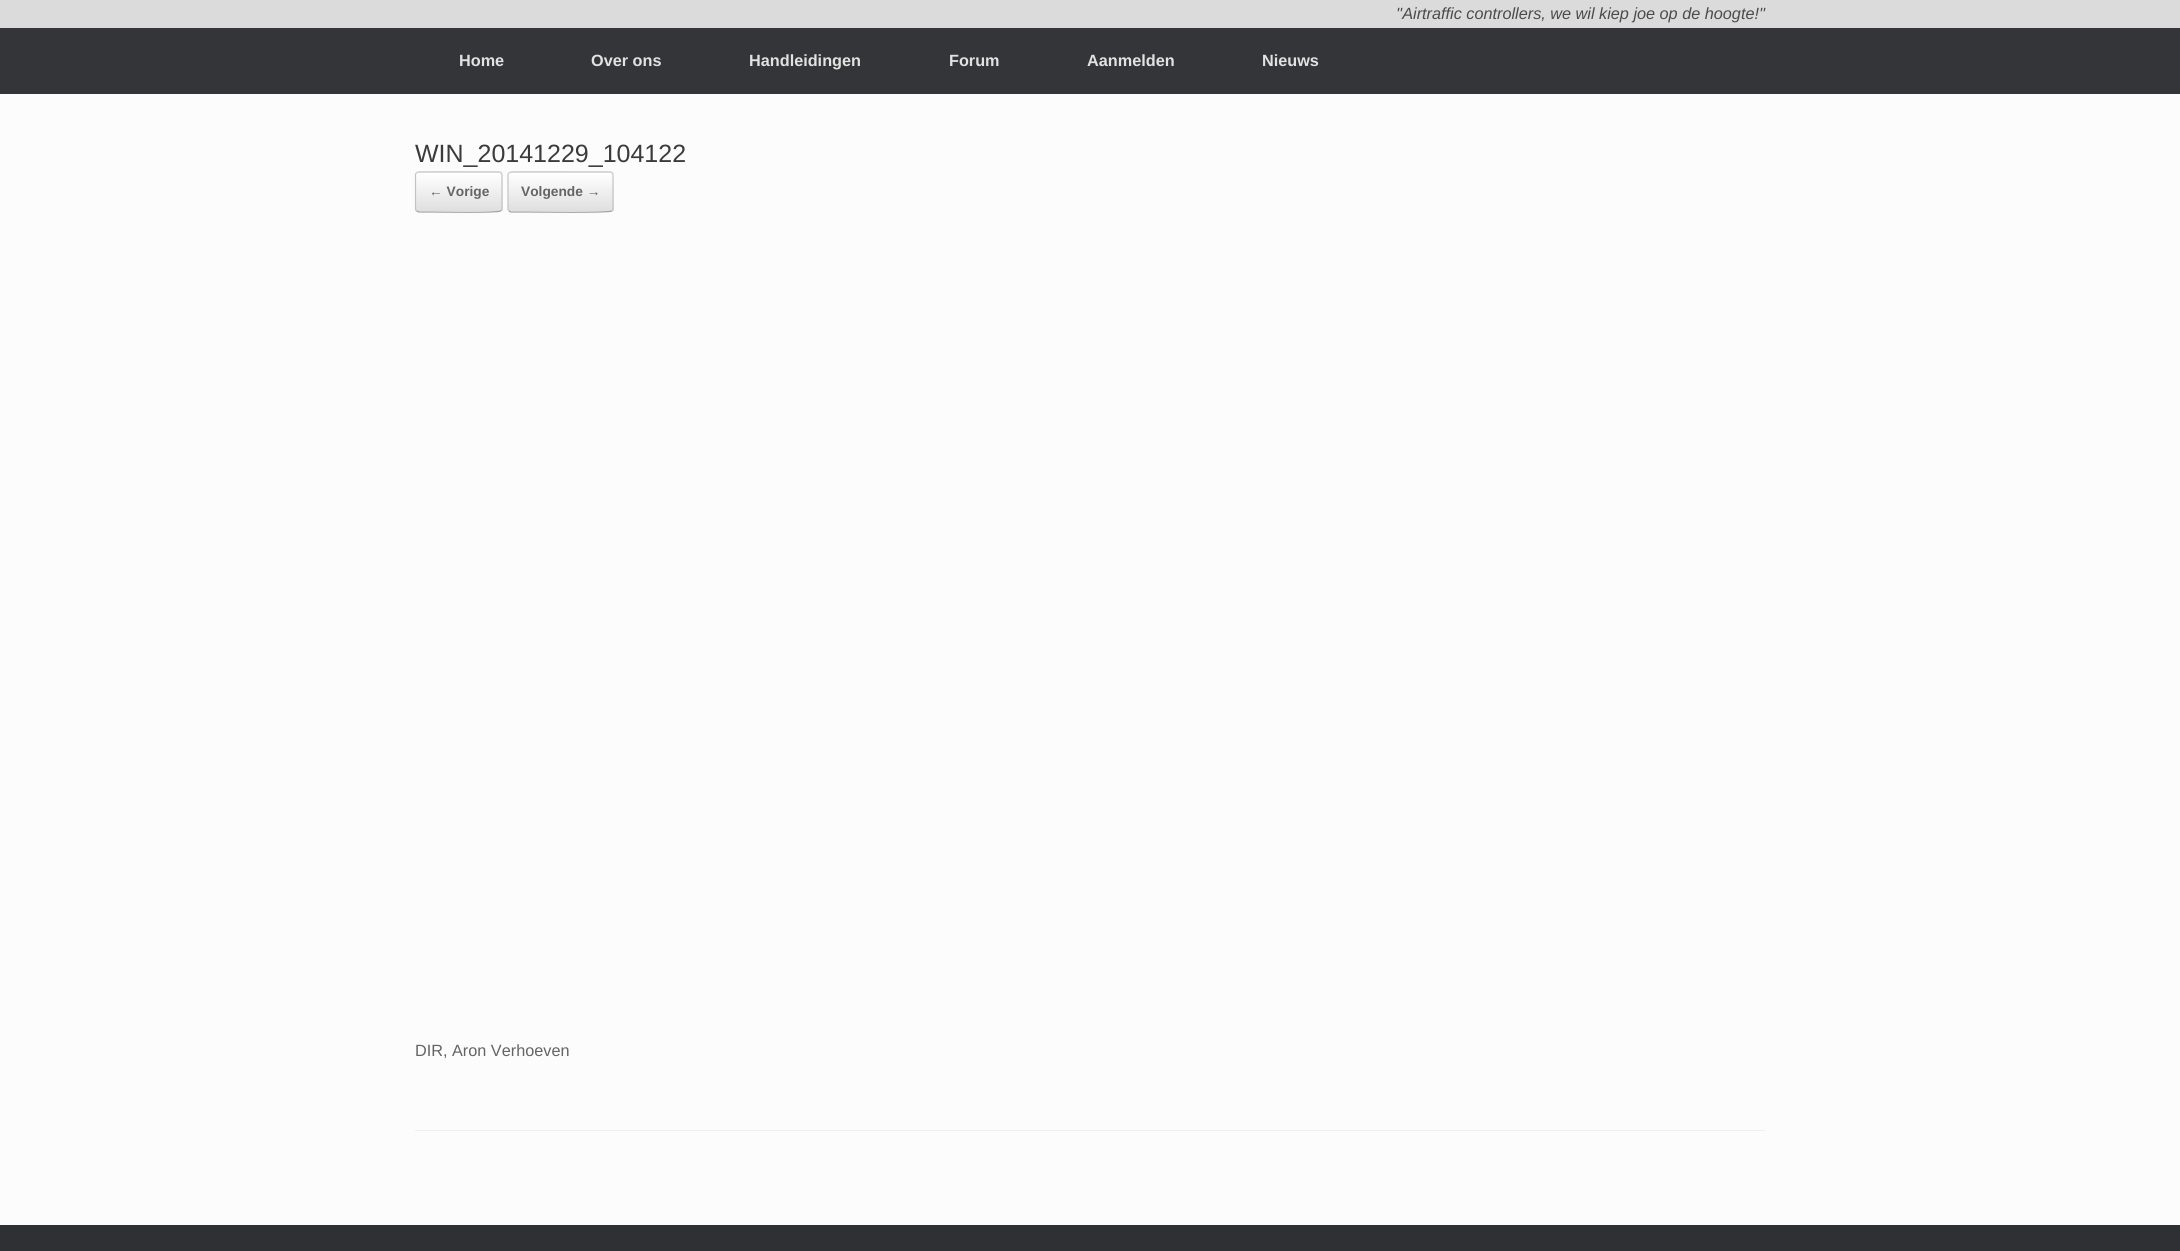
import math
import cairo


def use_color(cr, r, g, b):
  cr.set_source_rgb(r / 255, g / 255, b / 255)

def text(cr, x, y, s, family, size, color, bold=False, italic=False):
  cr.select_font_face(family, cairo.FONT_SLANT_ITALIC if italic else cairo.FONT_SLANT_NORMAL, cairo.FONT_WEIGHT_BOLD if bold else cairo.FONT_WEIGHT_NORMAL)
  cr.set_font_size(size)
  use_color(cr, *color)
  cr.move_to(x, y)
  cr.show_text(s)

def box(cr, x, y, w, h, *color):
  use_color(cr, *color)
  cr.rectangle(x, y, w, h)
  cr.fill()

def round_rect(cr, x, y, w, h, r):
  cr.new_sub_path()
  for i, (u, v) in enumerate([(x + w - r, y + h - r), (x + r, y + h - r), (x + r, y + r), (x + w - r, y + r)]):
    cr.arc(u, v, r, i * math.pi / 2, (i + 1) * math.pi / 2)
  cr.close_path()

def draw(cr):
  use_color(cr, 47, 48, 51)
  cr.paint()
  box(cr, 0, 0, 2180, 28, 219, 219, 219)
  box(cr, 0, 28, 2180, 66, 52, 53, 56)
  box(cr, 0, 94, 2180, 1131, 252, 252, 252)
  box(cr, 415, 1130, 1350, 1, 238, 238, 238)
  cr.save()
  round_rect(cr, 415, 171, 88, 42, 4)
  cr.clip()
  gradient = cairo.LinearGradient(416, 173, 416, 134)
  gradient.add_color_stop_rgba(0, 0.875, 0.875, 0.875, 1)
  gradient.add_color_stop_rgba(1, 1, 1, 1, 1)
  cr.set_source(gradient)
  cr.rectangle(415, 171, 88, 2)
  cr.fill()
  gradient = cairo.LinearGradient(416, 211, 416, 173)
  gradient.add_color_stop_rgba(0, 0.875, 0.875, 0.875, 1)
  gradient.add_color_stop_rgba(1, 1, 1, 1, 1)
  cr.set_source(gradient)
  cr.rectangle(415, 173, 88, 38)
  cr.fill()
  gradient = cairo.LinearGradient(416, 250, 416, 211)
  gradient.add_color_stop_rgba(0, 0.875, 0.875, 0.875, 1)
  gradient.add_color_stop_rgba(1, 1, 1, 1, 1)
  cr.set_source(gradient)
  cr.rectangle(415, 211, 88, 2)
  cr.fill()
  cr.restore()
  cr.new_path()
  cr.move_to(416.5, 173)
  cr.line_to(417, 172.5)
  cr.curve_to(419, 171, 478, 172, 485.5, 172)
  cr.line_to(499, 172)
  cr.line_to(501, 173)
  use_color(cr, 210, 210, 210)
  cr.set_line_width(1.2)
  cr.stroke()
  cr.new_path()
  cr.move_to(501, 173)
  cr.curve_to(501.5, 173.5, 502, 174, 502, 175)
  cr.line_to(502, 209)
  cr.curve_to(502, 209.5, 501.5, 210.5, 501, 211)
  use_color(cr, 195, 195, 195)
  cr.stroke()
  cr.new_path()
  cr.move_to(501, 211)
  cr.line_to(500.5, 211)
  cr.curve_to(498.5, 213, 439.5, 212, 432, 212)
  cr.line_to(419, 212)
  cr.line_to(416.5, 211)
  use_color(cr, 159, 159, 159)
  cr.stroke()
  cr.new_path()
  cr.move_to(416.5, 211)
  cr.curve_to(416, 210.5, 415.5, 209.5, 415.5, 209)
  cr.line_to(415.5, 175)
  cr.curve_to(415.5, 174, 416, 173.5, 416.5, 173)
  use_color(cr, 195, 195, 195)
  cr.stroke()
  cr.save()
  round_rect(cr, 508, 171, 106, 42, 4)
  cr.clip()
  gradient = cairo.LinearGradient(509, 173, 509, 134)
  gradient.add_color_stop_rgba(0, 0.875, 0.875, 0.875, 1)
  gradient.add_color_stop_rgba(1, 1, 1, 1, 1)
  cr.set_source(gradient)
  cr.rectangle(508, 171, 106, 2)
  cr.fill()
  gradient = cairo.LinearGradient(509, 211, 509, 173)
  gradient.add_color_stop_rgba(0, 0.875, 0.875, 0.875, 1)
  gradient.add_color_stop_rgba(1, 1, 1, 1, 1)
  cr.set_source(gradient)
  cr.rectangle(508, 173, 106, 38)
  cr.fill()
  gradient = cairo.LinearGradient(509, 250, 509, 211)
  gradient.add_color_stop_rgba(0, 0.875, 0.875, 0.875, 1)
  gradient.add_color_stop_rgba(1, 1, 1, 1, 1)
  cr.set_source(gradient)
  cr.rectangle(508, 211, 106, 2)
  cr.fill()
  cr.restore()
  cr.new_path()
  cr.move_to(509, 173)
  cr.line_to(509.5, 172.5)
  cr.curve_to(511.5, 171, 584.5, 172, 593.5, 172)
  cr.line_to(610, 172)
  cr.line_to(612, 173)
  use_color(cr, 210, 210, 210)
  cr.stroke()
  cr.new_path()
  cr.move_to(612, 173)
  cr.curve_to(613, 173.5, 613, 174, 613, 175)
  cr.line_to(613, 209)
  cr.curve_to(613, 209.5, 613, 210.5, 612, 211)
  use_color(cr, 195, 195, 195)
  cr.stroke()
  cr.new_path()
  cr.move_to(612, 211)
  cr.curve_to(610, 213, 536.5, 212, 527.5, 212)
  cr.line_to(511, 212)
  cr.line_to(509, 211)
  use_color(cr, 159, 159, 159)
  cr.stroke()
  cr.new_path()
  cr.move_to(509, 211)
  cr.curve_to(508.5, 210.5, 508, 209.5, 508, 209)
  cr.line_to(508, 175)
  cr.curve_to(508, 174, 508.5, 173.5, 509, 173)
  use_color(cr, 195, 195, 195)
  cr.stroke()
  text(cr, 1396, 19, "''Airtraffic controllers, we wil kiep joe op de hoogte!''", "Liberation Sans", 16.25, (75, 75, 75), italic=True)
  text(cr, 459, 66, "Home", "Liberation Sans", 16.25, (226, 226, 226), bold=True)
  text(cr, 591, 66, "Over ons", "Liberation Sans", 16.25, (226, 226, 226), bold=True)
  text(cr, 749, 66, "Handleidingen", "Liberation Sans", 16.25, (226, 226, 226), bold=True)
  text(cr, 949, 66, "Forum", "Liberation Sans", 16.25, (226, 226, 226), bold=True)
  text(cr, 1087, 66, "Aanmelden", "Liberation Sans", 16.25, (226, 226, 226), bold=True)
  text(cr, 1262, 66, "Nieuws", "Liberation Sans", 16.25, (226, 226, 226), bold=True)
  text(cr, 415, 162, "WIN_20141229_104122", "Liberation Sans", 25, (59, 59, 59))
  text(cr, 429, 196, "← Vorige", "Liberation Sans", 13.75, (100, 100, 100), bold=True)
  text(cr, 521, 196, "Volgende →", "Liberation Sans", 13.75, (100, 100, 100), bold=True)
  text(cr, 415, 1056, "DIR, Aron Verhoeven", "Liberation Sans", 16.25, (100, 100, 100))


surface = cairo.ImageSurface(cairo.FORMAT_RGB24, 2180, 1251)
cr = cairo.Context(surface)
options = cairo.FontOptions()
options.set_hint_metrics(cairo.HINT_METRICS_OFF)
options.set_hint_style(cairo.HINT_STYLE_NONE)
cr.set_font_options(options)
cr.set_miter_limit(4)
draw(cr)
surface.write_to_png("out.png")
